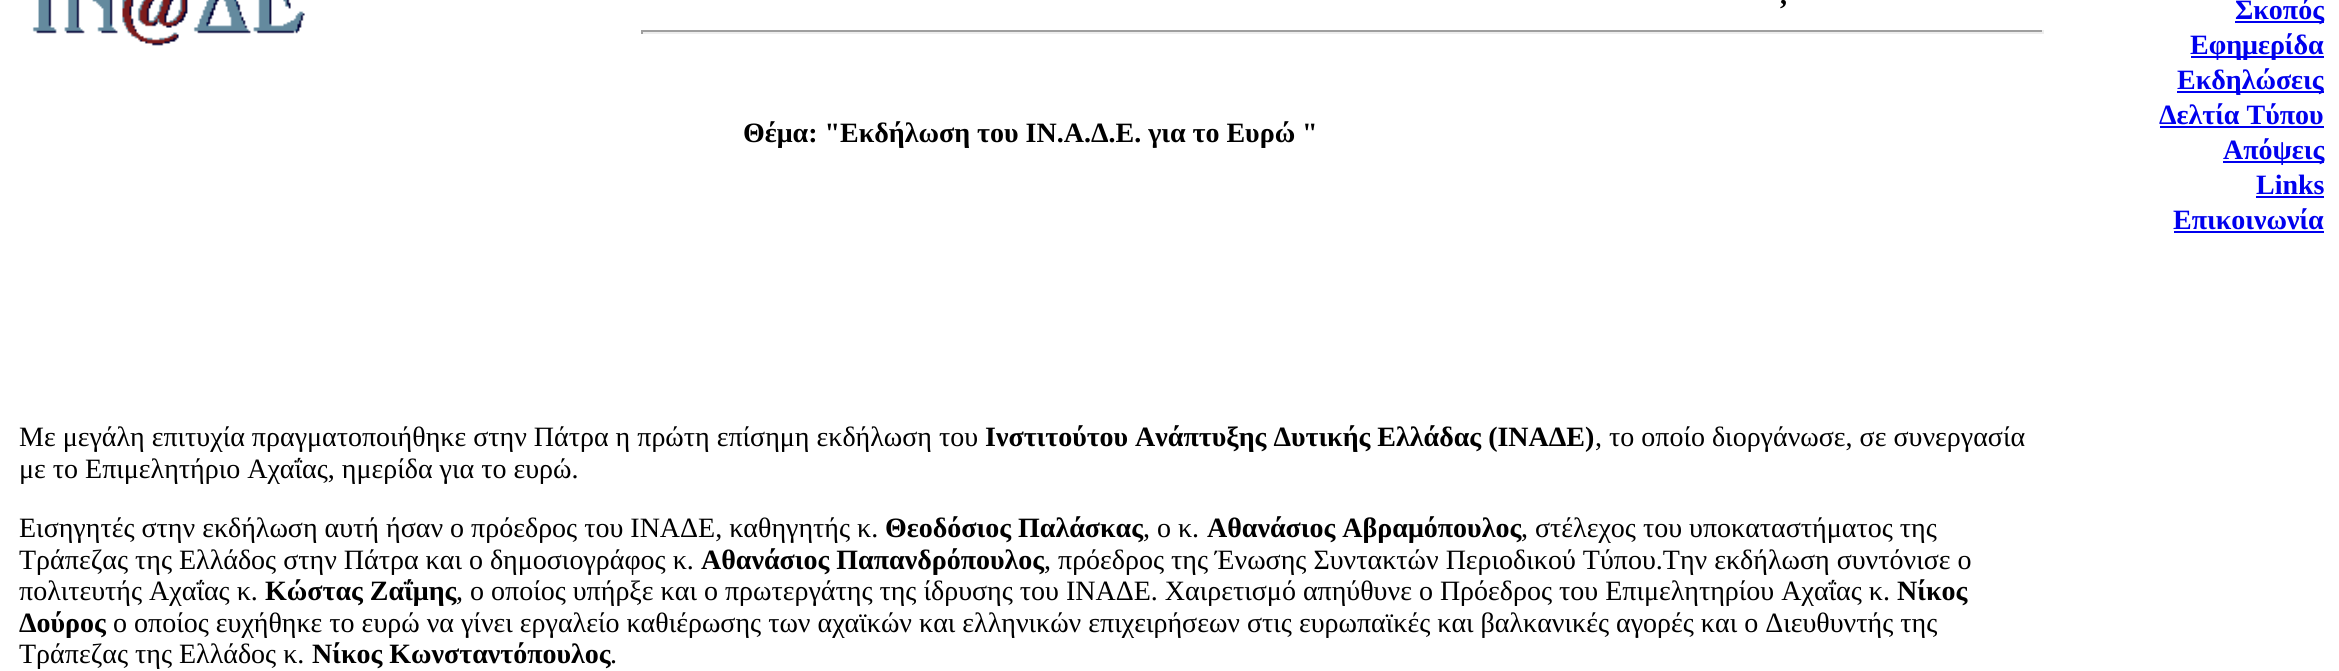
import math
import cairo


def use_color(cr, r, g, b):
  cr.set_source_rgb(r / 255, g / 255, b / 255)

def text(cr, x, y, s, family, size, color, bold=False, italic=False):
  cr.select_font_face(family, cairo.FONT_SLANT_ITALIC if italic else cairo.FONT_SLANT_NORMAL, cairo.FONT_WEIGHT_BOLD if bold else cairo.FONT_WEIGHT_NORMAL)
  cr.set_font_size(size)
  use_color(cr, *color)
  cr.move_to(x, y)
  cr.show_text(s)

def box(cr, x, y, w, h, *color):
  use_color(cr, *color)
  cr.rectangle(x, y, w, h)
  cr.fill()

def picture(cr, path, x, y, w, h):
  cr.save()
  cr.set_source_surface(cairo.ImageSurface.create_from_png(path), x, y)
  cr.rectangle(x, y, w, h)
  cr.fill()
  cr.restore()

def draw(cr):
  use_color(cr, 255, 255, 255)
  cr.paint()
  picture(cr, "img_01.png", 32, 0, 273, 46)
  box(cr, 641, 30, 1403, 2, 159, 159, 159)
  box(cr, 2042, 30, 2, 4, 238, 238, 238)
  box(cr, 641, 32, 1403, 2, 238, 238, 238)
  box(cr, 641, 30, 2, 4, 159, 159, 159)
  box(cr, 2235, 21, 89, 2, 0, 0, 238)
  box(cr, 2191, 56, 133, 2, 0, 0, 238)
  box(cr, 2177, 91, 147, 2, 0, 0, 238)
  box(cr, 2160, 126, 164, 2, 0, 0, 238)
  box(cr, 2223, 161, 101, 2, 0, 0, 238)
  box(cr, 2256, 196, 68, 2, 0, 0, 238)
  box(cr, 2174, 231, 150, 2, 0, 0, 238)
  text(cr, 1780, 4, ",", "Liberation Serif", 28, (0, 0, 0), bold=True)
  text(cr, 743, 142, "Θέμα: \"Εκδήλωση του ΙΝ.Α.Δ.Ε. για το Ευρώ \"", "Liberation Serif", 28, (0, 0, 0), bold=True)
  text(cr, 19, 446, "Με μεγάλη επιτυχία πραγματοποιήθηκε στην Πάτρα η πρώτη επίσημη εκδήλωση του", "Liberation Serif", 28, (0, 0, 0))
  text(cr, 985, 446, "Ινστιτούτου Ανάπτυξης Δυτικής Ελλάδας (ΙΝΑΔΕ)", "Liberation Serif", 28, (0, 0, 0), bold=True)
  text(cr, 1595, 446, ", το οποίο διοργάνωσε, σε συνεργασία", "Liberation Serif", 28, (0, 0, 0))
  text(cr, 19, 478, "με το Επιμελητήριο Αχαΐας, ημερίδα για το ευρώ.", "Liberation Serif", 28, (0, 0, 0))
  text(cr, 19, 537, "Εισηγητές στην εκδήλωση αυτή ήσαν ο πρόεδρος του ΙΝΑΔΕ, καθηγητής κ.", "Liberation Serif", 28, (0, 0, 0))
  text(cr, 885, 537, "Θεοδόσιος Παλάσκας", "Liberation Serif", 28, (0, 0, 0), bold=True)
  text(cr, 1143, 537, ", ο κ.", "Liberation Serif", 28, (0, 0, 0))
  text(cr, 1207, 537, "Αθανάσιος Αβραμόπουλος", "Liberation Serif", 28, (0, 0, 0), bold=True)
  text(cr, 1521, 537, ", στέλεχος του υποκαταστήματος της", "Liberation Serif", 28, (0, 0, 0))
  text(cr, 19, 569, "Τράπεζας της Ελλάδος στην Πάτρα και ο δημοσιογράφος κ.", "Liberation Serif", 28, (0, 0, 0))
  text(cr, 701, 569, "Αθανάσιος Παπανδρόπουλος", "Liberation Serif", 28, (0, 0, 0), bold=True)
  text(cr, 1044, 569, ", πρόεδρος της Ένωσης Συντακτών Περιοδικού Τύπου.Την εκδήλωση συντόνισε ο", "Liberation Serif", 28, (0, 0, 0))
  text(cr, 19, 600, "πολιτευτής Αχαΐας κ.", "Liberation Serif", 28, (0, 0, 0))
  text(cr, 265, 600, "Κώστας Ζαΐμης", "Liberation Serif", 28, (0, 0, 0), bold=True)
  text(cr, 456, 600, ", ο οποίος υπήρξε και ο πρωτεργάτης της ίδρυσης του ΙΝΑΔΕ. Χαιρετισμό απηύθυνε ο Πρόεδρος του Επιμελητηρίου Αχαΐας κ.", "Liberation Serif", 28, (0, 0, 0))
  text(cr, 1897, 600, "Νίκος", "Liberation Serif", 28, (0, 0, 0), bold=True)
  text(cr, 19, 632, "Δούρος", "Liberation Serif", 28, (0, 0, 0), bold=True)
  text(cr, 113, 632, "ο οποίος ευχήθηκε το ευρώ να γίνει εργαλείο καθιέρωσης των αχαϊκών και ελληνικών επιχειρήσεων στις ευρωπαϊκές και βαλκανικές αγορές και ο Διευθυντής της", "Liberation Serif", 28, (0, 0, 0))
  text(cr, 19, 663, "Τράπεζας της Ελλάδος κ.", "Liberation Serif", 28, (0, 0, 0))
  text(cr, 312, 663, "Νίκος Κωνσταντόπουλος", "Liberation Serif", 28, (0, 0, 0), bold=True)
  text(cr, 610, 663, ".", "Liberation Serif", 28, (0, 0, 0))
  text(cr, 2235, 19, "Σκοπός", "Liberation Serif", 28, (0, 0, 238), bold=True)
  text(cr, 2190, 54, "Εφημερίδα", "Liberation Serif", 28, (0, 0, 238), bold=True)
  text(cr, 2177, 89, "Εκδηλώσεις", "Liberation Serif", 28, (0, 0, 238), bold=True)
  text(cr, 2159, 124, "Δελτία Τύπου", "Liberation Serif", 28, (0, 0, 238), bold=True)
  text(cr, 2223, 159, "Απόψεις", "Liberation Serif", 28, (0, 0, 238), bold=True)
  text(cr, 2256, 194, "Links", "Liberation Serif", 28, (0, 0, 238), bold=True)
  text(cr, 2173, 229, "Επικοινωνία", "Liberation Serif", 28, (0, 0, 238), bold=True)


surface = cairo.ImageSurface(cairo.FORMAT_RGB24, 2339, 671)
cr = cairo.Context(surface)
options = cairo.FontOptions()
options.set_hint_metrics(cairo.HINT_METRICS_OFF)
options.set_hint_style(cairo.HINT_STYLE_NONE)
cr.set_font_options(options)
cr.set_miter_limit(4)
draw(cr)
surface.write_to_png("out.png")
